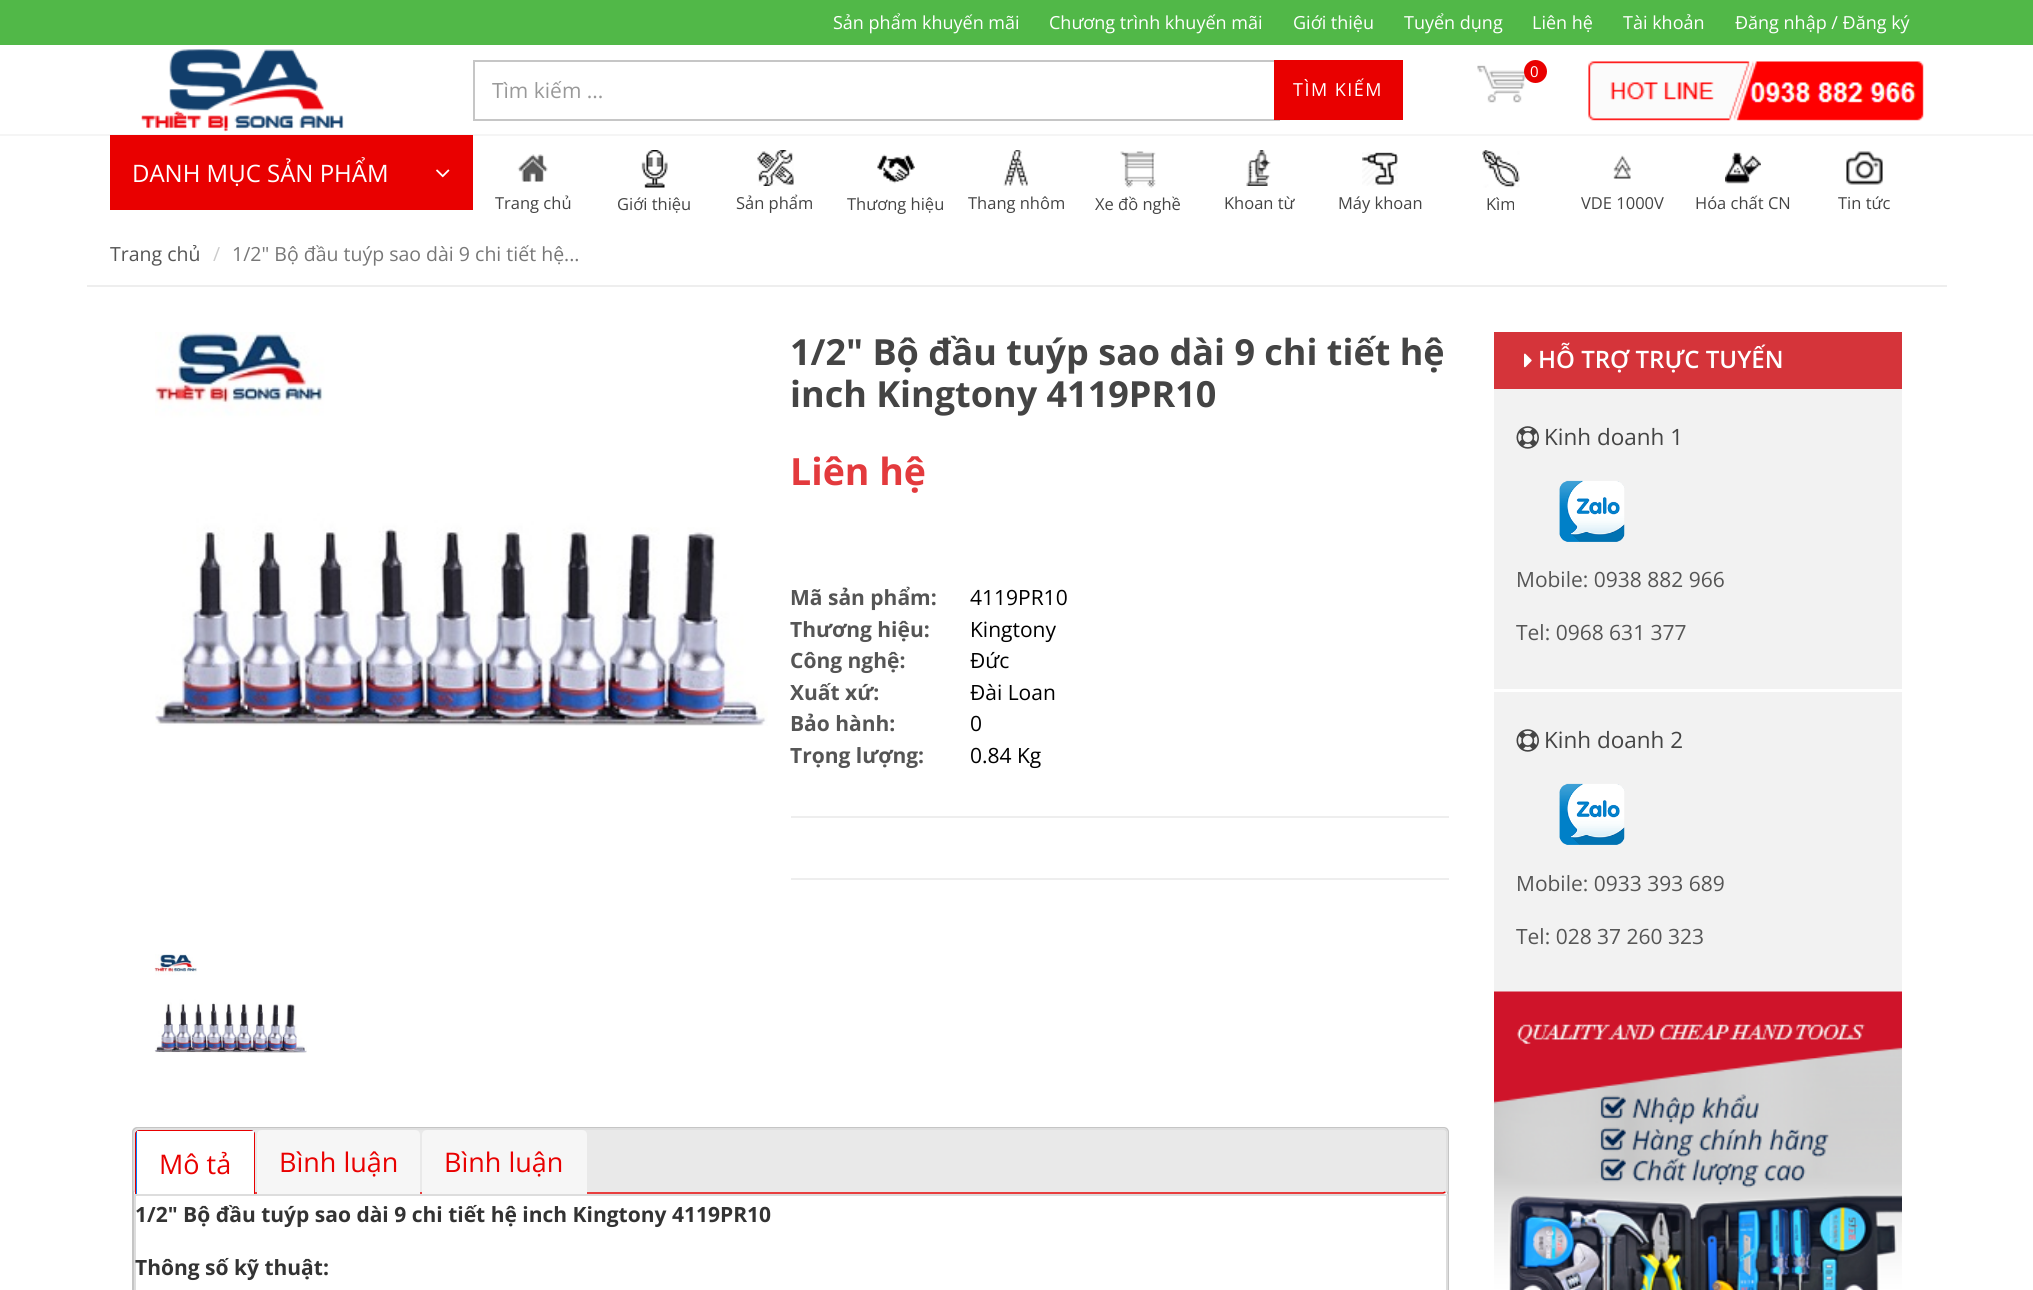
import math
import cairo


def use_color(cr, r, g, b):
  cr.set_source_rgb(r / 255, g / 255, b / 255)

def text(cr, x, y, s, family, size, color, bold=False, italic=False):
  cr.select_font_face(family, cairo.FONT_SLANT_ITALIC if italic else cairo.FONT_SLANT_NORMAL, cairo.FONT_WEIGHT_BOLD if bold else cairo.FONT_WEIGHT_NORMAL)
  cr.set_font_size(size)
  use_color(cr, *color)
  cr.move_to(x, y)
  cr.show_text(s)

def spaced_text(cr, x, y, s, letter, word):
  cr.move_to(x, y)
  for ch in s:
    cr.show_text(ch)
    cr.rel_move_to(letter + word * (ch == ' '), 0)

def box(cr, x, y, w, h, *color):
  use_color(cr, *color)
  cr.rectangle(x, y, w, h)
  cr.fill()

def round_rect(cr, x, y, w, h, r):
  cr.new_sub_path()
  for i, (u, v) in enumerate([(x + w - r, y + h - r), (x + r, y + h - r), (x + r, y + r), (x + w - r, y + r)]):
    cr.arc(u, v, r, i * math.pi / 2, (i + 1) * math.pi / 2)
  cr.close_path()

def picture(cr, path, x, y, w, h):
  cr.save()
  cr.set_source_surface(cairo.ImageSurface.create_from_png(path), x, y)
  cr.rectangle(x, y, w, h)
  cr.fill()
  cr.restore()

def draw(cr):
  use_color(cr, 255, 255, 255)
  cr.paint()
  box(cr, 0, 0, 2033, 45, 81, 184, 72)
  box(cr, 0, 134, 2033, 2, 245, 245, 245)
  picture(cr, "img_01.png", 141, 49, 203, 83)
  picture(cr, "img_02.png", 1477, 65, 49, 38)
  use_color(cr, 233, 0, 0)
  cr.arc(1535.5, 71.5, 11.5, 0, 2 * math.pi)
  cr.fill()
  picture(cr, "img_03.png", 1588, 61, 336, 60)
  box(cr, 473, 60, 807, 2, 198, 198, 198)
  box(cr, 473, 119, 807, 2, 198, 198, 198)
  box(cr, 473, 60, 2, 60, 198, 198, 198)
  box(cr, 1274, 60, 129, 60, 233, 0, 0)
  box(cr, 110, 135, 363, 75, 233, 0, 0)
  picture(cr, "img_04.png", 436, 169, 14, 9)
  picture(cr, "img_05.png", 517, 154, 31, 28)
  picture(cr, "img_06.png", 641, 150, 27, 38)
  picture(cr, "img_07.png", 757, 150, 37, 36)
  picture(cr, "img_08.png", 877, 154, 38, 30)
  picture(cr, "img_09.png", 1003, 150, 25, 36)
  picture(cr, "img_10.png", 1120, 151, 36, 37)
  picture(cr, "img_11.png", 1246, 150, 25, 36)
  picture(cr, "img_12.png", 1362, 152, 36, 34)
  picture(cr, "img_13.png", 1482, 150, 38, 38)
  picture(cr, "img_14.png", 1613, 155, 18, 24)
  picture(cr, "img_15.png", 1725, 152, 36, 32)
  picture(cr, "img_16.png", 1846, 151, 37, 34)
  box(cr, 87, 285, 1860, 2, 238, 238, 238)
  picture(cr, "img_17.png", 155, 332, 613, 394)
  picture(cr, "img_18.png", 154, 954, 153, 99)
  box(cr, 791, 816, 658, 2, 238, 238, 238)
  box(cr, 791, 878, 658, 2, 238, 238, 238)
  round_rect(cr, 133, 1128, 1315, 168, 4)
  use_color(cr, 197, 197, 197)
  cr.stroke()
  use_color(cr, 233, 233, 233)
  round_rect(cr, 134, 1128, 1314, 66, 5)
  cr.fill()
  cr.new_path()
  cr.move_to(1445.5, 1192)
  cr.line_to(1443, 1193)
  cr.line_to(138, 1193)
  cr.line_to(135.5, 1192)
  use_color(cr, 233, 0, 0)
  cr.set_line_width(1.5)
  cr.stroke()
  cr.new_path()
  cr.move_to(135.5, 1192)
  cr.curve_to(134.5, 1191.5, 134, 1190.5, 134, 1189.5)
  cr.line_to(134, 1132.5)
  cr.curve_to(134, 1131.5, 134.5, 1130.5, 135.5, 1130)
  cr.curve_to(136, 1129, 137, 1129, 138, 1129)
  cr.line_to(1443, 1129)
  cr.curve_to(1444, 1129, 1445, 1129, 1445.5, 1130)
  cr.curve_to(1446.5, 1130.5, 1447, 1131.5, 1447, 1132.5)
  cr.line_to(1447, 1189.5)
  cr.curve_to(1447, 1190.5, 1446.5, 1191.5, 1445.5, 1192)
  use_color(cr, 221, 221, 221)
  cr.stroke()
  use_color(cr, 0, 127, 255)
  cr.new_path()
  cr.move_to(140, 1130)
  cr.line_to(250, 1130)
  cr.curve_to(253, 1130, 255, 1132, 255, 1135)
  cr.line_to(255, 1196)
  cr.line_to(135, 1196)
  cr.line_to(135, 1135)
  cr.curve_to(135, 1132, 137, 1130, 140, 1130)
  cr.close_path()
  cr.fill()
  use_color(cr, 233, 0, 0)
  cr.set_fill_rule(cairo.FILL_RULE_EVEN_ODD)
  cr.new_path()
  cr.move_to(140, 1130)
  cr.line_to(250, 1130)
  cr.curve_to(253, 1130, 255, 1132, 255, 1134)
  cr.line_to(255, 1196)
  cr.line_to(135, 1196)
  cr.line_to(135, 1134)
  cr.curve_to(135, 1132, 137, 1130, 140, 1130)
  cr.close_path()
  cr.move_to(140, 1131)
  cr.line_to(250, 1131)
  cr.curve_to(252, 1131, 254, 1132, 254, 1134)
  cr.line_to(254, 1196)
  cr.line_to(136, 1196)
  cr.line_to(136, 1134)
  cr.curve_to(136, 1132, 138, 1131, 140, 1131)
  cr.close_path()
  cr.fill()
  box(cr, 137, 1131, 117, 63, 255, 255, 255)
  use_color(cr, 246, 246, 246)
  cr.new_path()
  cr.move_to(262, 1130)
  cr.line_to(415, 1130)
  cr.curve_to(418, 1130, 420, 1132, 420, 1135)
  cr.line_to(420, 1196)
  cr.line_to(257, 1196)
  cr.line_to(257, 1135)
  cr.curve_to(257, 1132, 259, 1130, 262, 1130)
  cr.close_path()
  cr.fill()
  cr.new_path()
  cr.move_to(427, 1130)
  cr.line_to(582, 1130)
  cr.curve_to(585, 1130, 587, 1132, 587, 1135)
  cr.line_to(587, 1196)
  cr.line_to(422, 1196)
  cr.line_to(422, 1135)
  cr.curve_to(422, 1132, 424, 1130, 427, 1130)
  cr.close_path()
  cr.fill()
  cr.rectangle(135, 1195, 1312, 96)
  use_color(cr, 221, 221, 221)
  cr.set_line_width(2)
  cr.stroke()
  box(cr, 1494, 332, 408, 57, 213, 52, 58)
  picture(cr, "img_19.png", 1524, 353, 8, 15)
  box(cr, 1494, 389, 408, 603, 242, 242, 242)
  box(cr, 1494, 689, 408, 3, 255, 255, 255)
  picture(cr, "img_20.png", 1516, 426, 23, 23)
  picture(cr, "img_21.png", 1559, 480, 66, 62)
  picture(cr, "img_20.png", 1516, 729, 23, 23)
  picture(cr, "img_21.png", 1559, 783, 66, 62)
  picture(cr, "img_22.png", 1494, 991, 408, 299)
  text(cr, 833, 29, "Sản phẩm khuyến mãi", "Open Sans", 18, (255, 255, 255))
  text(cr, 1049, 29, "Chương trình khuyến mãi", "Open Sans", 18, (255, 255, 255))
  text(cr, 1293, 29, "Giới thiệu", "Open Sans", 18, (255, 255, 255))
  text(cr, 1404, 29, "Tuyển dụng", "Open Sans", 18, (255, 255, 255))
  text(cr, 1532, 29, "Liên hệ", "Open Sans", 18, (255, 255, 255))
  text(cr, 1623, 29, "Tài khoản", "Open Sans", 18, (255, 255, 255))
  text(cr, 1735, 29, "Đăng nhập / Đăng ký", "Open Sans", 18, (255, 255, 255))
  text(cr, 1530, 77, "0", "Open Sans", 15, (255, 255, 255))
  text(cr, 492, 98, "Tìm kiếm ...", "Open Sans", 21, (153, 153, 153))
  cr.set_font_size(18)
  use_color(cr, 255, 255, 255)
  spaced_text(cr, 1293, 96, "TÌM KIẾM", 1.5, 0)
  text(cr, 132, 182, "DANH MỤC SẢN PHẨM", "Open Sans", 24, (255, 255, 255))
  text(cr, 495, 209, "Trang chủ", "Open Sans", 16.5, (68, 68, 68))
  text(cr, 617, 210, "Giới thiệu", "Open Sans", 16.5, (68, 68, 68))
  text(cr, 736, 209, "Sản phẩm", "Open Sans", 16.5, (68, 68, 68))
  text(cr, 847, 210, "Thương hiệu", "Open Sans", 16.5, (68, 68, 68))
  text(cr, 968, 209, "Thang nhôm", "Open Sans", 16.5, (68, 68, 68))
  text(cr, 1095, 210, "Xe đồ nghề", "Open Sans", 16.5, (68, 68, 68))
  text(cr, 1224, 209, "Khoan từ", "Open Sans", 16.5, (68, 68, 68))
  text(cr, 1338, 209, "Máy khoan", "Open Sans", 16.5, (68, 68, 68))
  text(cr, 1486, 210, "Kìm", "Open Sans", 16.5, (68, 68, 68))
  text(cr, 1581, 209, "VDE 1000V", "Open Sans", 16.5, (68, 68, 68))
  text(cr, 1695, 209, "Hóa chất CN", "Open Sans", 16.5, (68, 68, 68))
  text(cr, 1838, 209, "Tin tức", "Open Sans", 16.5, (68, 68, 68))
  text(cr, 110, 261, "Trang chủ", "Open Sans", 19.5, (85, 85, 85))
  text(cr, 213, 261, "/", "Open Sans", 19.5, (204, 204, 204))
  text(cr, 232, 261, "1/2\" Bộ đầu tuýp sao dài 9 chi tiết hệ...", "Open Sans", 19.5, (119, 119, 119))
  text(cr, 790, 365, "1/2\" Bộ đầu tuýp sao dài 9 chi tiết hệ", "Open Sans", 36, (68, 68, 68), bold=True)
  text(cr, 790, 407, "inch Kingtony 4119PR10", "Open Sans", 36, (68, 68, 68), bold=True)
  text(cr, 790, 485, "Liên hệ", "Open Sans", 37.5, (227, 58, 61), bold=True)
  text(cr, 790, 605, "Mã sản phẩm:", "Open Sans", 21, (85, 85, 85), bold=True)
  text(cr, 970, 605, "4119PR10", "Open Sans", 21, (0, 0, 0))
  text(cr, 790, 637, "Thương hiệu:", "Open Sans", 21, (85, 85, 85), bold=True)
  text(cr, 970, 637, "Kingtony", "Open Sans", 21, (0, 0, 0))
  text(cr, 790, 668, "Công nghệ:", "Open Sans", 21, (85, 85, 85), bold=True)
  text(cr, 970, 668, "Đức", "Open Sans", 21, (0, 0, 0))
  text(cr, 790, 700, "Xuất xứ:", "Open Sans", 21, (85, 85, 85), bold=True)
  text(cr, 970, 700, "Đài Loan", "Open Sans", 21, (0, 0, 0))
  text(cr, 790, 731, "Bảo hành:", "Open Sans", 21, (85, 85, 85), bold=True)
  text(cr, 970, 731, "0", "Open Sans", 21, (0, 0, 0))
  text(cr, 790, 763, "Trọng lượng:", "Open Sans", 21, (85, 85, 85), bold=True)
  text(cr, 970, 763, "0.84 Kg", "Open Sans", 21, (0, 0, 0))
  text(cr, 159, 1174, "Mô tả", "Open Sans", 27, (233, 0, 0))
  text(cr, 279, 1172, "Bình luận", "Open Sans", 27, (233, 0, 0))
  text(cr, 444, 1172, "Bình luận", "Open Sans", 27, (233, 0, 0))
  text(cr, 135, 1222, "1/2\" Bộ đầu tuýp sao dài 9 chi tiết hệ inch Kingtony 4119PR10", "Open Sans", 21, (51, 51, 51), bold=True)
  text(cr, 135, 1275, "Thông số kỹ thuật:", "Open Sans", 21, (51, 51, 51), bold=True)
  text(cr, 1538, 368, "HỖ TRỢ TRỰC TUYẾN", "Open Sans SemiBold", 24, (255, 255, 255))
  text(cr, 1544, 445, "Kinh doanh 1", "Open Sans", 22.5, (68, 68, 68))
  text(cr, 1516, 587, "Mobile: 0938 882 966", "Open Sans", 21, (85, 85, 85))
  text(cr, 1516, 640, "Tel: 0968 631 377", "Open Sans", 21, (85, 85, 85))
  text(cr, 1544, 748, "Kinh doanh 2", "Open Sans", 22.5, (68, 68, 68))
  text(cr, 1516, 891, "Mobile: 0933 393 689", "Open Sans", 21, (85, 85, 85))
  text(cr, 1516, 944, "Tel: 028 37 260 323", "Open Sans", 21, (85, 85, 85))


surface = cairo.ImageSurface(cairo.FORMAT_RGB24, 2033, 1290)
cr = cairo.Context(surface)
options = cairo.FontOptions()
options.set_hint_metrics(cairo.HINT_METRICS_OFF)
options.set_hint_style(cairo.HINT_STYLE_NONE)
cr.set_font_options(options)
cr.set_miter_limit(4)
draw(cr)
surface.write_to_png("out.png")
